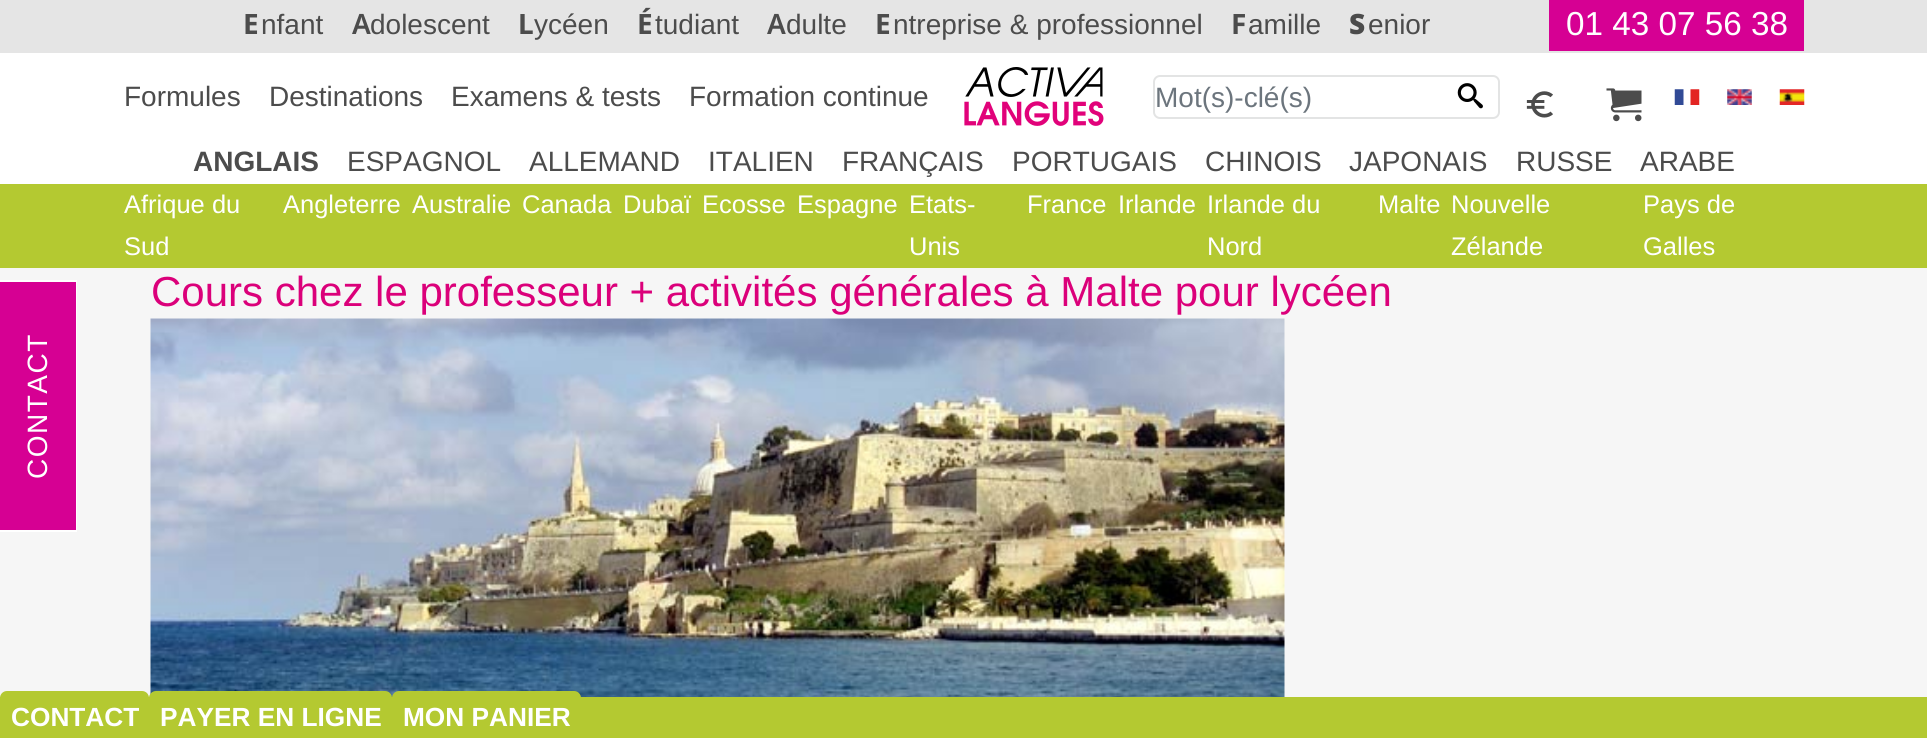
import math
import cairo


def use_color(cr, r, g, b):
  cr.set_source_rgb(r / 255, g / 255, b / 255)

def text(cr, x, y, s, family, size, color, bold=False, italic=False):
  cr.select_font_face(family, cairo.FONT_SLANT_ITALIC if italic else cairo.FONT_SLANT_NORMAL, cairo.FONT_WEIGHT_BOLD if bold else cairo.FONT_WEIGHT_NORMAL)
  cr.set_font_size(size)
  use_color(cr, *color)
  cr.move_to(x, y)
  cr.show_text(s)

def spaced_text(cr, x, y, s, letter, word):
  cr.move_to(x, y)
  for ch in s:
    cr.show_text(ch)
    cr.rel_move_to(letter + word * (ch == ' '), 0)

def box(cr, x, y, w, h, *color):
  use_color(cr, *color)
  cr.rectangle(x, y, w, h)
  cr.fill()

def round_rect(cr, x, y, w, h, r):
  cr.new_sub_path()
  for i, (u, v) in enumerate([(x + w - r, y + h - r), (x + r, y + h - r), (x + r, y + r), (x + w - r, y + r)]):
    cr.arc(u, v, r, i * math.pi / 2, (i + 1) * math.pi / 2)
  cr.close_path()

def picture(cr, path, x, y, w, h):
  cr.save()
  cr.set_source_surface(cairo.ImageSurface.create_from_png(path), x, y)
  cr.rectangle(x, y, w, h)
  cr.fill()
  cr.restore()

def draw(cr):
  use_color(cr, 255, 255, 255)
  cr.paint()
  box(cr, 0, 0, 1927, 53, 229, 229, 229)
  box(cr, 1549, 0, 255, 51, 214, 0, 147)
  picture(cr, "img_01.png", 964, 67, 140, 59)
  round_rect(cr, 1154, 76, 345, 42, 6)
  use_color(cr, 227, 228, 228)
  cr.stroke()
  picture(cr, "img_02.png", 1457, 83, 26, 26)
  picture(cr, "img_03.png", 1526, 91, 27, 27)
  picture(cr, "img_04.png", 1606, 88, 36, 34)
  picture(cr, "img_05.png", 1674, 89, 26, 16)
  box(cr, 1727, 89, 25, 16, 239, 239, 239)
  picture(cr, "img_06.png", 1727, 89, 25, 16)
  picture(cr, "img_07.png", 1779, 89, 26, 16)
  box(cr, 0, 184, 1927, 84, 180, 201, 49)
  box(cr, 0, 268, 1927, 429, 246, 246, 246)
  picture(cr, "img_08.png", 150, 318, 1135, 379)
  box(cr, 0, 282, 76, 248, 214, 0, 147)
  box(cr, 0, 280, 77, 2, 255, 255, 255)
  box(cr, 76, 280, 1, 252, 255, 255, 255)
  box(cr, 0, 530, 77, 2, 255, 255, 255)
  box(cr, 0, 697, 1927, 41, 180, 201, 49)
  round_rect(cr, 0, 691, 149, 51, 7)
  cr.fill()
  round_rect(cr, 149, 691, 243, 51, 7)
  cr.fill()
  round_rect(cr, 392, 691, 189, 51, 7)
  cr.fill()
  text(cr, 243, 34, "E", "Noto Sans", 28, (76, 76, 76), bold=True)
  text(cr, 261, 34, "nfant", "Liberation Sans", 28, (76, 76, 76))
  text(cr, 352, 34, "A", "Noto Sans SemiBold", 28, (76, 76, 76))
  text(cr, 370, 34, "dolescent", "Liberation Sans", 28, (76, 76, 76))
  text(cr, 518, 34, "L", "Noto Sans", 28, (76, 76, 76), bold=True)
  text(cr, 534, 34, "ycéen", "Liberation Sans", 28, (76, 76, 76))
  text(cr, 637, 34, "É", "Noto Sans", 28, (76, 76, 76), bold=True)
  text(cr, 655, 34, "tudiant", "Liberation Sans", 28, (76, 76, 76))
  text(cr, 767, 34, "A", "Noto Sans SemiBold", 28, (76, 76, 76))
  text(cr, 786, 34, "dulte", "Liberation Sans", 28, (76, 76, 76))
  text(cr, 875, 34, "E", "Noto Sans", 28, (76, 76, 76), bold=True)
  text(cr, 893, 34, "ntreprise & professionnel", "Liberation Sans", 28, (76, 76, 76))
  text(cr, 1231, 34, "F", "Noto Sans", 28, (76, 76, 76), bold=True)
  text(cr, 1248, 34, "amille", "Liberation Sans", 28, (76, 76, 76))
  text(cr, 1349, 34, "S", "Noto Sans Black", 28, (76, 76, 76))
  text(cr, 1368, 34, "enior", "Liberation Sans", 28, (76, 76, 76))
  text(cr, 1566, 35, "01 43 07 56 38", "Liberation Sans", 33.25, (255, 255, 255))
  text(cr, 124, 106, "Formules", "Liberation Sans", 28, (76, 76, 76))
  text(cr, 269, 106, "Destinations", "Liberation Sans", 28, (76, 76, 76))
  text(cr, 451, 106, "Examens & tests", "Liberation Sans", 28, (76, 76, 76))
  text(cr, 689, 106, "Formation continue", "Liberation Sans", 28, (76, 76, 76))
  text(cr, 1155, 107, "Mot(s)-clé(s)", "Liberation Sans", 28, (108, 117, 125))
  text(cr, 193, 171, "ANGLAIS", "Liberation Sans", 28, (76, 76, 76), bold=True)
  text(cr, 347, 171, "ESPAGNOL", "Liberation Sans", 28, (76, 76, 76))
  text(cr, 529, 171, "ALLEMAND", "Liberation Sans", 28, (76, 76, 76))
  text(cr, 708, 171, "ITALIEN", "Liberation Sans", 28, (76, 76, 76))
  text(cr, 842, 171, "FRANÇAIS", "Liberation Sans", 28, (76, 76, 76))
  text(cr, 1012, 171, "PORTUGAIS", "Liberation Sans", 28, (76, 76, 76))
  text(cr, 1205, 171, "CHINOIS", "Liberation Sans", 28, (76, 76, 76))
  text(cr, 1349, 171, "JAPONAIS", "Liberation Sans", 28, (76, 76, 76))
  text(cr, 1516, 171, "RUSSE", "Liberation Sans", 28, (76, 76, 76))
  text(cr, 1640, 171, "ARABE", "Liberation Sans", 28, (76, 76, 76))
  text(cr, 124, 213, "Afrique du", "Liberation Sans", 25.5, (255, 255, 255))
  text(cr, 124, 255, "Sud", "Liberation Sans", 25.5, (255, 255, 255))
  text(cr, 283, 213, "Angleterre", "Liberation Sans", 25.5, (255, 255, 255))
  text(cr, 412, 213, "Australie", "Liberation Sans", 25.5, (255, 255, 255))
  text(cr, 522, 213, "Canada", "Liberation Sans", 25.5, (255, 255, 255))
  text(cr, 623, 213, "Dubaï", "Liberation Sans", 25.5, (255, 255, 255))
  text(cr, 702, 213, "Ecosse", "Liberation Sans", 25.5, (255, 255, 255))
  text(cr, 797, 213, "Espagne", "Liberation Sans", 25.5, (255, 255, 255))
  text(cr, 909, 213, "Etats-", "Liberation Sans", 25.5, (255, 255, 255))
  text(cr, 909, 255, "Unis", "Liberation Sans", 25.5, (255, 255, 255))
  text(cr, 1027, 213, "France", "Liberation Sans", 25.5, (255, 255, 255))
  text(cr, 1118, 213, "Irlande", "Liberation Sans", 25.5, (255, 255, 255))
  text(cr, 1207, 213, "Irlande du", "Liberation Sans", 25.5, (255, 255, 255))
  text(cr, 1207, 255, "Nord", "Liberation Sans", 25.5, (255, 255, 255))
  text(cr, 1378, 213, "Malte", "Liberation Sans", 25.5, (255, 255, 255))
  text(cr, 1451, 213, "Nouvelle", "Liberation Sans", 25.5, (255, 255, 255))
  text(cr, 1451, 255, "Zélande", "Liberation Sans", 25.5, (255, 255, 255))
  text(cr, 1643, 213, "Pays de", "Liberation Sans", 25.5, (255, 255, 255))
  text(cr, 1643, 255, "Galles", "Liberation Sans", 25.5, (255, 255, 255))
  text(cr, 151, 306, "Cours chez le professeur + activités générales à Malte pour lycéen", "Liberation Sans", 42, (219, 0, 122))
  cr.set_font_size(28)
  use_color(cr, 255, 255, 255)
  cr.save()
  cr.translate(47, 479)
  cr.rotate(-90 * math.pi / 180)
  spaced_text(cr, 0, 0, "CONTACT", 1.5, 0)
  cr.restore()
  text(cr, 11, 726, "CONTACT", "Liberation Sans", 26.25, (255, 255, 255), bold=True)
  text(cr, 160, 726, "PAYER EN LIGNE", "Liberation Sans", 26.25, (255, 255, 255), bold=True)
  text(cr, 403, 726, "MON PANIER", "Liberation Sans", 26.25, (255, 255, 255), bold=True)


surface = cairo.ImageSurface(cairo.FORMAT_RGB24, 1927, 738)
cr = cairo.Context(surface)
options = cairo.FontOptions()
options.set_hint_metrics(cairo.HINT_METRICS_OFF)
options.set_hint_style(cairo.HINT_STYLE_NONE)
cr.set_font_options(options)
cr.set_miter_limit(4)
draw(cr)
surface.write_to_png("out.png")
